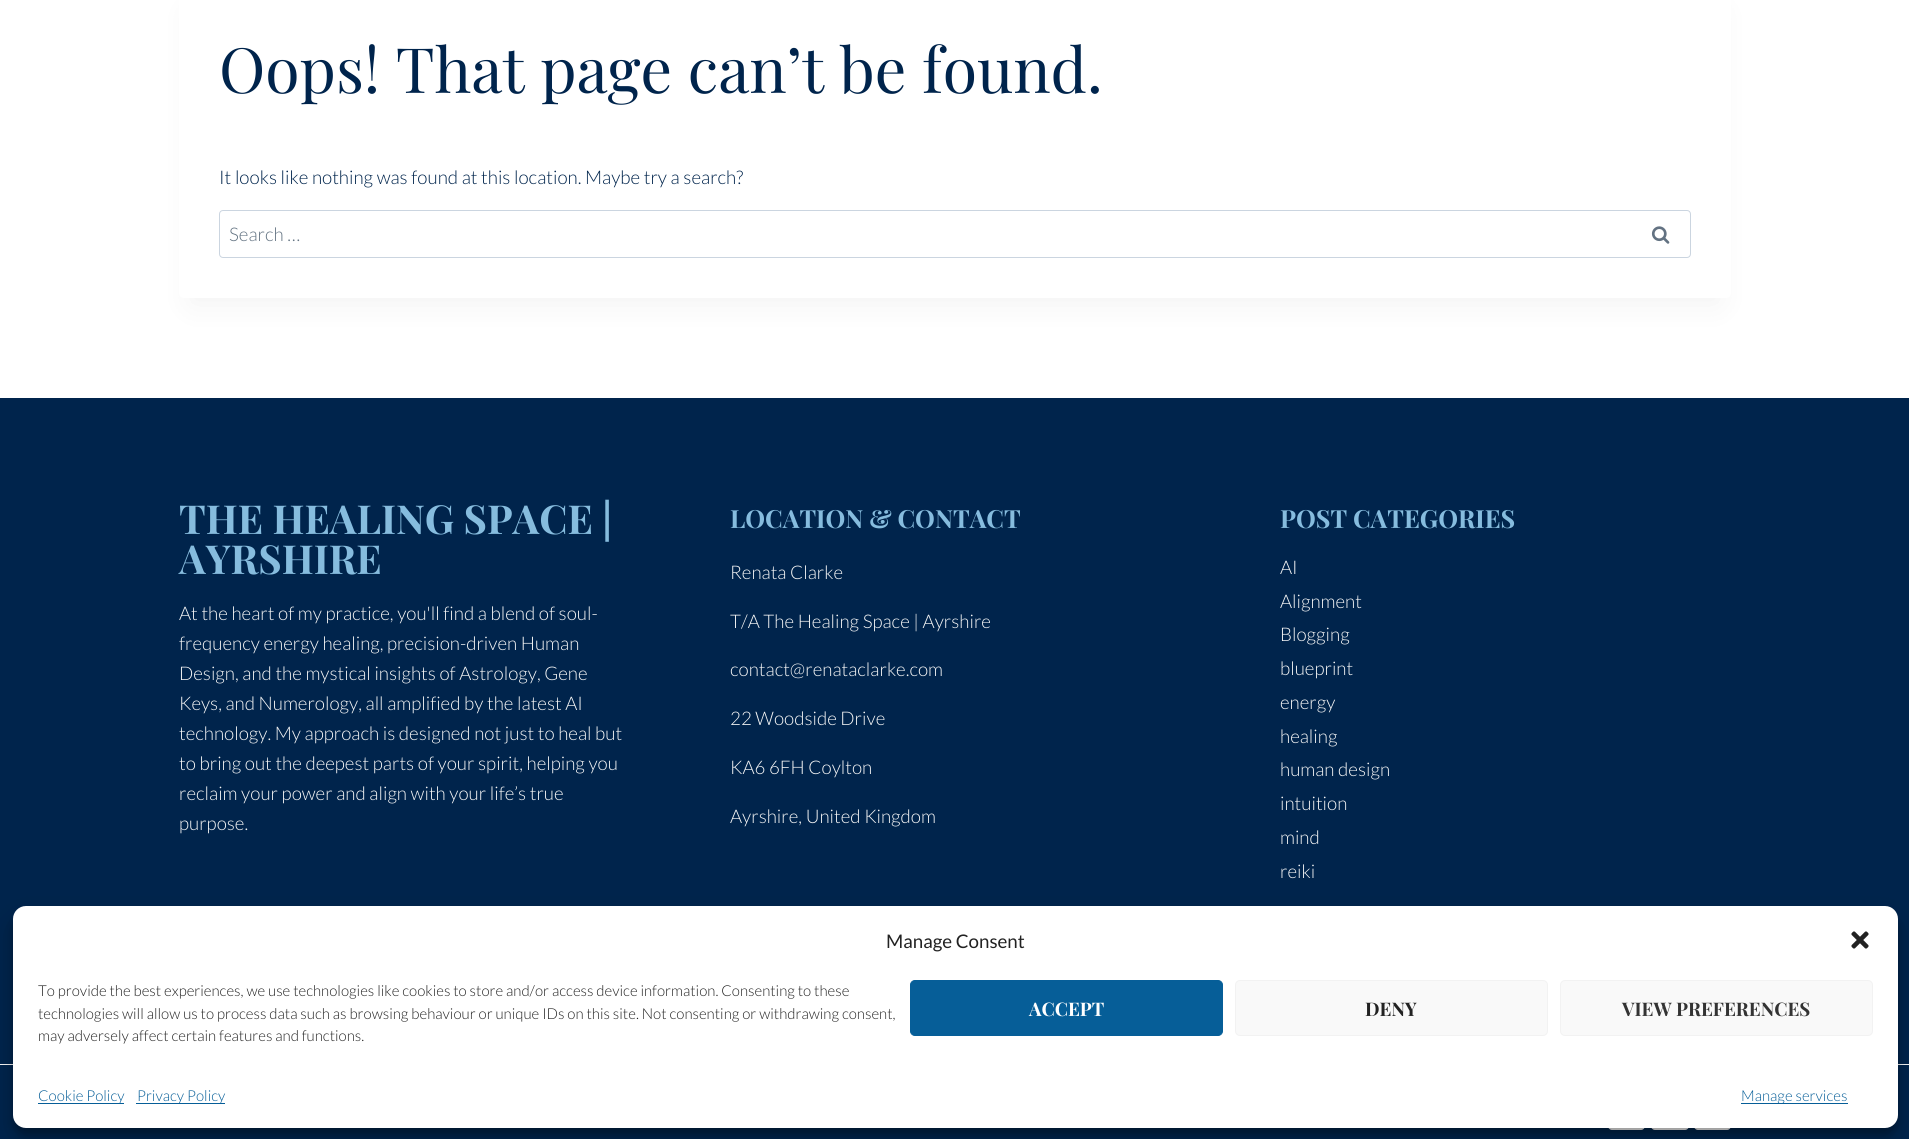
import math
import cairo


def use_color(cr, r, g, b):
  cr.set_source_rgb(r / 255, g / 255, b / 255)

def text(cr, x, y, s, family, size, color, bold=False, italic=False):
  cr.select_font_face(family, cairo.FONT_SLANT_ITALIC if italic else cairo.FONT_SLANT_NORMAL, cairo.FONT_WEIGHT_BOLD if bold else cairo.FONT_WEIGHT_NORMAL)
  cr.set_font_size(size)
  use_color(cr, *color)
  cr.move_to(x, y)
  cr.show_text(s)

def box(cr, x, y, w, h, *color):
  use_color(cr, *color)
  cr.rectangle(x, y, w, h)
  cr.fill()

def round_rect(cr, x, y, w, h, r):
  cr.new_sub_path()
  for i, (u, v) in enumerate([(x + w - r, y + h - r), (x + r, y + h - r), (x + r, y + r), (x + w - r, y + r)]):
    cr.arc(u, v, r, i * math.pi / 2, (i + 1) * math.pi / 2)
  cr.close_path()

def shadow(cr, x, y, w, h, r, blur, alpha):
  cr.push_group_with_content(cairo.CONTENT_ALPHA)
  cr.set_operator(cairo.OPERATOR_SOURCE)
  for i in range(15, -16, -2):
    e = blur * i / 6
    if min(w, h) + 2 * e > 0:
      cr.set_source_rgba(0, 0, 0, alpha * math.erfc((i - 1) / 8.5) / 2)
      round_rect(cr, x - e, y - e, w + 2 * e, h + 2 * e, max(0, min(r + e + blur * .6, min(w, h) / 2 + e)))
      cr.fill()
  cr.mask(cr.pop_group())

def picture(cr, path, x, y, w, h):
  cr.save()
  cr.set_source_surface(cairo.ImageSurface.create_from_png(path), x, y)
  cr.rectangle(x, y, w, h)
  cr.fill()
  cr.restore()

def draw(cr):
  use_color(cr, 255, 255, 255)
  cr.paint()
  use_color(cr, 0, 0, 0)
  shadow(cr, 191, 13, 1528, 291, 0, 15.5, 0.05)
  use_color(cr, 255, 255, 255)
  round_rect(cr, 179, -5, 1552, 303, 5)
  cr.fill()
  round_rect(cr, 219.5, 210.5, 1471, 47, 3.5)
  use_color(cr, 203, 213, 224)
  cr.set_line_width(1)
  cr.stroke()
  picture(cr, "img_01.png", 1651, 226, 19, 18)
  box(cr, 0, 398, 1909, 666, 0, 36, 76)
  box(cr, 0, 1065, 1909, 74, 0, 36, 76)
  box(cr, 0, 1064, 1909, 1, 246, 246, 246)
  round_rect(cr, 1608, 1093, 37, 37, 4)
  cr.fill()
  round_rect(cr, 1651, 1093, 38, 37, 4)
  cr.fill()
  round_rect(cr, 1694, 1093, 37, 37, 4)
  cr.fill()
  use_color(cr, 0, 0, 0)
  shadow(cr, 13, 914, 1885, 221, 13, 4, 0.23)
  shadow(cr, 13, 919, 1885, 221, 13, 12.5, 0.19)
  use_color(cr, 255, 255, 255)
  round_rect(cr, 13, 906, 1885, 222, 13)
  cr.fill()
  picture(cr, "img_02.png", 1851, 931, 18, 18)
  use_color(cr, 6, 94, 152)
  round_rect(cr, 910.5, 980.5, 312, 55, 4.5)
  cr.fill_preserve()
  cr.stroke()
  use_color(cr, 249, 249, 249)
  round_rect(cr, 1235.5, 980.5, 312, 55, 4.5)
  cr.fill_preserve()
  use_color(cr, 242, 242, 242)
  cr.stroke()
  use_color(cr, 249, 249, 249)
  round_rect(cr, 1560.5, 980.5, 312, 55, 4.5)
  cr.fill_preserve()
  use_color(cr, 242, 242, 242)
  cr.stroke()
  box(cr, 38, 1103, 86, 1, 6, 94, 152)
  box(cr, 136, 1103, 89, 1, 6, 94, 152)
  box(cr, 1741, 1103, 107, 1, 6, 94, 152)
  text(cr, 219, 93, "Oops! That page can’t be found.", "Playfair Display", 62.5, (0, 36, 76))
  text(cr, 219, 184, "It looks like nothing was found at this location. Maybe try a search?", "Lato Light", 18.75, (0, 36, 76))
  text(cr, 229, 241, "Search …", "Lato Light", 18.75, (99, 115, 130))
  text(cr, 179, 534, "THE HEALING SPACE |", "Playfair Display", 40, (134, 188, 222), bold=True)
  text(cr, 179, 574, "AYRSHIRE", "Playfair Display", 40, (134, 188, 222), bold=True)
  text(cr, 179, 620, "At the heart of my practice, you'll find a blend of soul-", "Lato Light", 18.75, (246, 246, 246))
  text(cr, 179, 650, "frequency energy healing, precision-driven Human", "Lato Light", 18.75, (246, 246, 246))
  text(cr, 179, 680, "Design, and the mystical insights of Astrology, Gene", "Lato Light", 18.75, (246, 246, 246))
  text(cr, 179, 710, "Keys, and Numerology, all amplified by the latest AI", "Lato Light", 18.75, (246, 246, 246))
  text(cr, 179, 740, "technology. My approach is designed not just to heal but", "Lato Light", 18.75, (246, 246, 246))
  text(cr, 179, 770, "to bring out the deepest parts of your spirit, helping you", "Lato Light", 18.75, (246, 246, 246))
  text(cr, 179, 800, "reclaim your power and align with your life’s true", "Lato Light", 18.75, (246, 246, 246))
  text(cr, 179, 830, "purpose.", "Lato Light", 18.75, (246, 246, 246))
  text(cr, 730, 528, "LOCATION & CONTACT", "Playfair Display", 25, (134, 188, 222), bold=True)
  text(cr, 730, 579, "Renata Clarke", "Lato Light", 18.75, (246, 246, 246))
  text(cr, 730, 628, "T/A The Healing Space | Ayrshire", "Lato Light", 18.75, (246, 246, 246))
  text(cr, 730, 676, "contact@renataclarke.com", "Lato Light", 18.75, (246, 246, 246))
  text(cr, 730, 725, "22 Woodside Drive", "Lato Light", 18.75, (246, 246, 246))
  text(cr, 730, 774, "KA6 6FH Coylton", "Lato Light", 18.75, (246, 246, 246))
  text(cr, 730, 823, "Ayrshire, United Kingdom", "Lato Light", 18.75, (246, 246, 246))
  text(cr, 1280, 528, "POST CATEGORIES", "Playfair Display", 25, (134, 188, 222), bold=True)
  text(cr, 1280, 574, "AI", "Lato Light", 18.75, (246, 246, 246))
  text(cr, 1280, 608, "Alignment", "Lato Light", 18.75, (246, 246, 246))
  text(cr, 1280, 641, "Blogging", "Lato Light", 18.75, (246, 246, 246))
  text(cr, 1280, 675, "blueprint", "Lato Light", 18.75, (246, 246, 246))
  text(cr, 1280, 709, "energy", "Lato Light", 18.75, (246, 246, 246))
  text(cr, 1280, 743, "healing", "Lato Light", 18.75, (246, 246, 246))
  text(cr, 1280, 776, "human design", "Lato Light", 18.75, (246, 246, 246))
  text(cr, 1280, 810, "intuition", "Lato Light", 18.75, (246, 246, 246))
  text(cr, 1280, 844, "mind", "Lato Light", 18.75, (246, 246, 246))
  text(cr, 1280, 878, "reiki", "Lato Light", 18.75, (246, 246, 246))
  text(cr, 886, 948, "Manage Consent", "Lato", 18.75, (34, 34, 34))
  text(cr, 38, 996, "To provide the best experiences, we use technologies like cookies to store and/or access device information. Consenting to these", "Lato Light", 15, (34, 34, 34))
  text(cr, 38, 1019, "technologies will allow us to process data such as browsing behaviour or unique IDs on this site. Not consenting or withdrawing consent,", "Lato Light", 15, (34, 34, 34))
  text(cr, 38, 1041, "may adversely affect certain features and functions.", "Lato Light", 15, (34, 34, 34))
  text(cr, 1029, 1016, "ACCEPT", "Playfair Display SC", 18.75, (255, 255, 255), bold=True)
  text(cr, 1365, 1016, "DENY", "Playfair Display SC", 18.75, (34, 34, 34), bold=True)
  text(cr, 1622, 1016, "VIEW PREFERENCES", "Playfair Display SC", 18.75, (51, 51, 51), bold=True)
  text(cr, 38, 1101, "Cookie Policy", "Lato Light", 15, (6, 94, 152))
  text(cr, 137, 1101, "Privacy Policy", "Lato Light", 15, (6, 94, 152))
  text(cr, 1741, 1101, "Manage services", "Lato Light", 15, (6, 94, 152))


surface = cairo.ImageSurface(cairo.FORMAT_RGB24, 1909, 1139)
cr = cairo.Context(surface)
options = cairo.FontOptions()
options.set_hint_metrics(cairo.HINT_METRICS_OFF)
options.set_hint_style(cairo.HINT_STYLE_NONE)
cr.set_font_options(options)
cr.set_miter_limit(4)
draw(cr)
surface.write_to_png("out.png")
